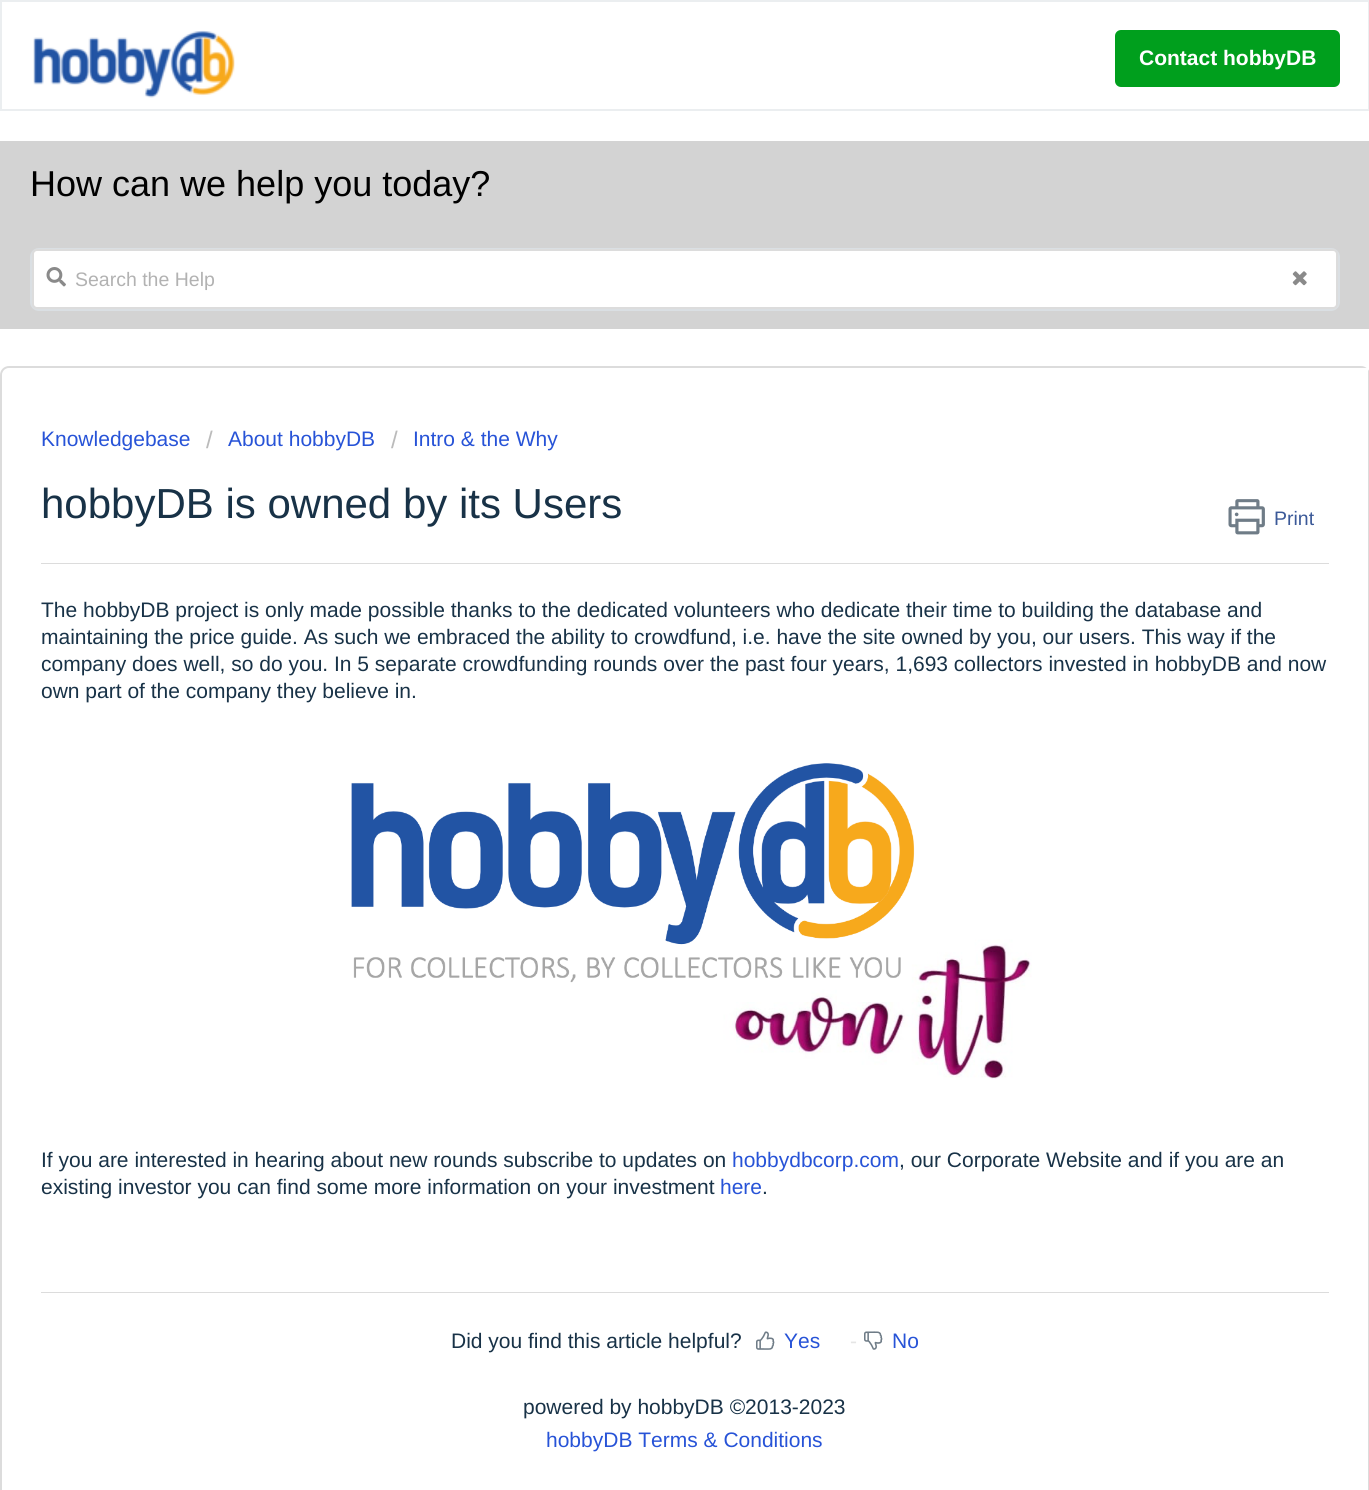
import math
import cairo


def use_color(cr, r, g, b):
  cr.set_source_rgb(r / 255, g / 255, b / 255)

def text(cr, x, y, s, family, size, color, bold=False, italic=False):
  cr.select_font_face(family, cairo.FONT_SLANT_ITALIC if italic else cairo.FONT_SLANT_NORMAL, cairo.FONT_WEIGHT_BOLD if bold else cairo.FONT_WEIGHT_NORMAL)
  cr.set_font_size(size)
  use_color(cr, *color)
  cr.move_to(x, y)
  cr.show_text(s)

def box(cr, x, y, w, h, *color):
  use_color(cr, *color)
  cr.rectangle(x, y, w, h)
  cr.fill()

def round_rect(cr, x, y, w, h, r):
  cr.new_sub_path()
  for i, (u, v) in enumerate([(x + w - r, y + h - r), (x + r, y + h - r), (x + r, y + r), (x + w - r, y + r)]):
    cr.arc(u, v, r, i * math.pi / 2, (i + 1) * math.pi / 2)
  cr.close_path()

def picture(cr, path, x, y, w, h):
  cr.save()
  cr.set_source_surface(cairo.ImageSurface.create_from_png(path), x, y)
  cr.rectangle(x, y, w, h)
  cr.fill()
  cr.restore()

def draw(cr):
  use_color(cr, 255, 255, 255)
  cr.paint()
  cr.rectangle(1, 1, 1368, 109)
  use_color(cr, 235, 238, 240)
  cr.stroke()
  picture(cr, "img_01.png", 33, 30, 202, 68)
  use_color(cr, 0, 159, 29)
  round_rect(cr, 1115, 30, 225, 57, 6)
  cr.fill()
  box(cr, 0, 141, 1369, 188, 211, 211, 211)
  round_rect(cr, 31, 249, 1308, 61, 8)
  use_color(cr, 218, 223, 227)
  cr.stroke()
  use_color(cr, 255, 255, 255)
  round_rect(cr, 33, 250, 1304, 58, 4)
  cr.fill_preserve()
  use_color(cr, 220, 220, 220)
  cr.stroke()
  picture(cr, "img_02.png", 46, 267, 20, 20)
  picture(cr, "img_03.png", 1292, 271, 15, 15)
  round_rect(cr, 1, 367, 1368, 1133, 8)
  cr.stroke()
  use_color(cr, 255, 255, 255)
  cr.new_path()
  cr.move_to(11, 368)
  cr.line_to(1368, 368)
  cr.line_to(1368, 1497)
  cr.line_to(11, 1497)
  cr.curve_to(6, 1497, 2, 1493, 2, 1488)
  cr.line_to(2, 377)
  cr.curve_to(2, 372, 6, 368, 11, 368)
  cr.close_path()
  cr.fill()
  picture(cr, "img_04.png", 1228, 499, 37, 36)
  box(cr, 41, 563, 1288, 1, 220, 220, 220)
  picture(cr, "img_05.png", 351, 763, 681, 317)
  box(cr, 41, 1292, 1288, 1, 220, 220, 220)
  picture(cr, "img_06.png", 756, 1331, 19, 19)
  picture(cr, "img_07.png", 864, 1331, 19, 19)
  text(cr, 1139, 65, "Contact hobbyDB", "Liberation Sans", 21, (255, 255, 255), bold=True)
  text(cr, 30, 196, "How can we help you today?", "Liberation Sans", 36, (0, 0, 0))
  text(cr, 75, 286, "Search the Help", "Liberation Sans", 19.5, (178, 178, 178))
  text(cr, 41, 446, "Knowledgebase", "Liberation Sans", 21, (39, 83, 215))
  text(cr, 206, 448, "/", "Liberation Sans", 24, (187, 187, 187))
  text(cr, 228, 446, "About hobbyDB", "Liberation Sans", 21, (39, 83, 215))
  text(cr, 391, 448, "/", "Liberation Sans", 24, (187, 187, 187))
  text(cr, 413, 446, "Intro & the Why", "Liberation Sans", 21, (39, 83, 215))
  text(cr, 41, 518, "hobbyDB is owned by its Users", "Liberation Sans", 42, (24, 50, 71))
  text(cr, 1274, 525, "Print", "Liberation Sans", 19.5, (59, 89, 152))
  text(cr, 41, 617, "The hobbyDB project is only made possible thanks to the dedicated volunteers who dedicate their time to building the database and", "Liberation Sans", 21, (24, 50, 71))
  text(cr, 41, 644, "maintaining the price guide. As such we embraced the ability to crowdfund, i.e. have the site owned by you, our users. This way if the", "Liberation Sans", 21, (24, 50, 71))
  text(cr, 41, 671, "company does well, so do you. In 5 separate crowdfunding rounds over the past four years, 1,693 collectors invested in hobbyDB and now", "Liberation Sans", 21, (24, 50, 71))
  text(cr, 41, 698, "own part of the company they believe in.", "Liberation Sans", 21, (24, 50, 71))
  text(cr, 41, 1167, "If you are interested in hearing about new rounds subscribe to updates on", "Liberation Sans", 21, (24, 50, 71))
  text(cr, 732, 1167, "hobbydbcorp.com", "Liberation Sans", 21, (39, 83, 215))
  text(cr, 899, 1167, ", our Corporate Website and if you are an", "Liberation Sans", 21, (24, 50, 71))
  text(cr, 41, 1194, "existing investor you can find some more information on your investment", "Liberation Sans", 21, (24, 50, 71))
  text(cr, 720, 1194, "here", "Liberation Sans", 21, (39, 83, 215))
  text(cr, 762, 1194, ".", "Liberation Sans", 21, (24, 50, 71))
  text(cr, 451, 1348, "Did you find this article helpful?", "Liberation Sans", 21, (24, 50, 71))
  text(cr, 784, 1348, "Yes", "Liberation Sans", 21, (39, 83, 215))
  text(cr, 850, 1348, "-", "Liberation Sans", 21, (229, 229, 229))
  text(cr, 892, 1348, "No", "Liberation Sans", 21, (39, 83, 215))
  text(cr, 523, 1414, "powered by hobbyDB ©2013-2023", "Liberation Sans", 21, (24, 50, 71))
  text(cr, 546, 1447, "hobbyDB Terms & Conditions", "Liberation Sans", 21, (39, 83, 215))


surface = cairo.ImageSurface(cairo.FORMAT_RGB24, 1369, 1490)
cr = cairo.Context(surface)
options = cairo.FontOptions()
options.set_hint_metrics(cairo.HINT_METRICS_OFF)
options.set_hint_style(cairo.HINT_STYLE_NONE)
cr.set_font_options(options)
cr.set_miter_limit(4)
draw(cr)
surface.write_to_png("out.png")
